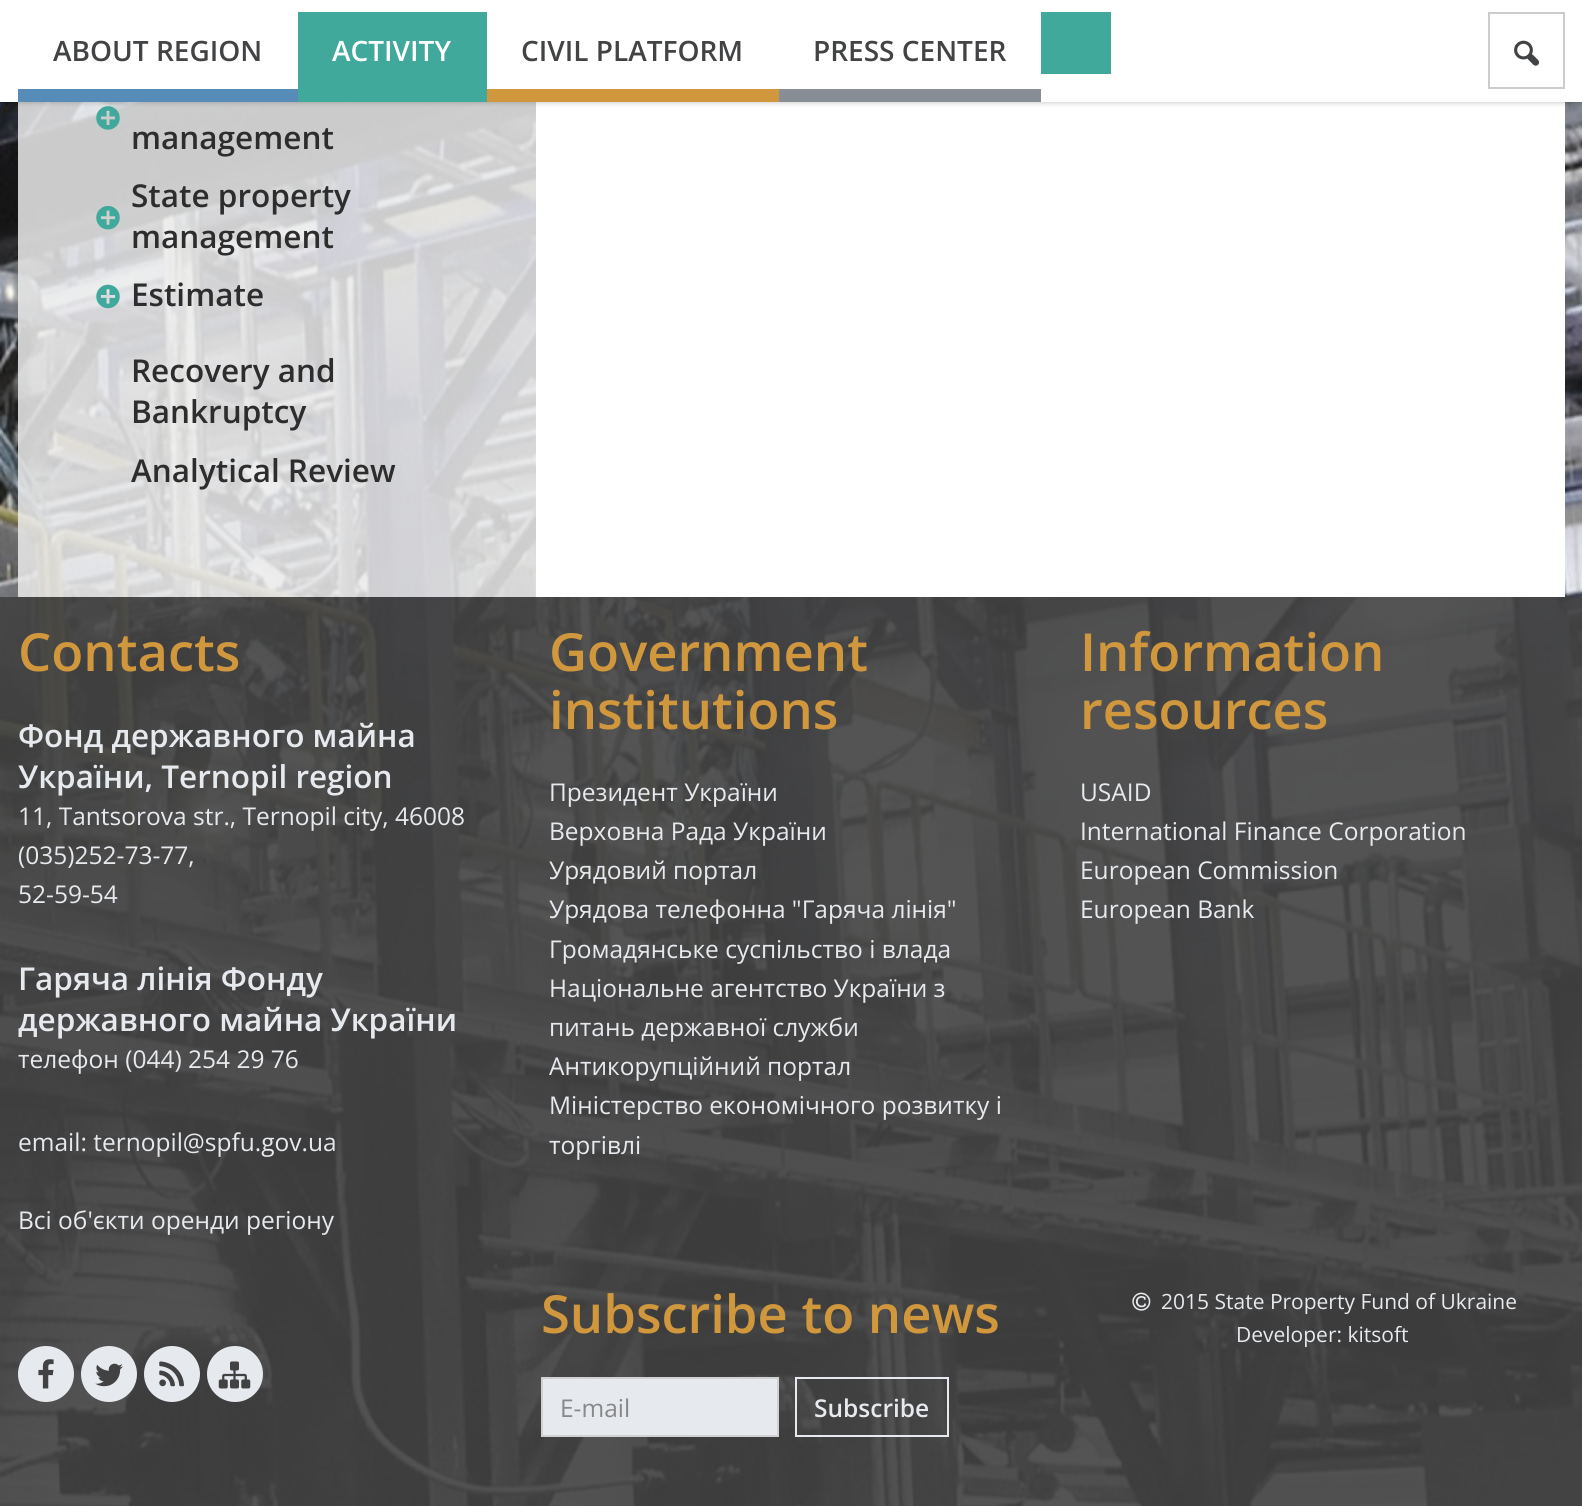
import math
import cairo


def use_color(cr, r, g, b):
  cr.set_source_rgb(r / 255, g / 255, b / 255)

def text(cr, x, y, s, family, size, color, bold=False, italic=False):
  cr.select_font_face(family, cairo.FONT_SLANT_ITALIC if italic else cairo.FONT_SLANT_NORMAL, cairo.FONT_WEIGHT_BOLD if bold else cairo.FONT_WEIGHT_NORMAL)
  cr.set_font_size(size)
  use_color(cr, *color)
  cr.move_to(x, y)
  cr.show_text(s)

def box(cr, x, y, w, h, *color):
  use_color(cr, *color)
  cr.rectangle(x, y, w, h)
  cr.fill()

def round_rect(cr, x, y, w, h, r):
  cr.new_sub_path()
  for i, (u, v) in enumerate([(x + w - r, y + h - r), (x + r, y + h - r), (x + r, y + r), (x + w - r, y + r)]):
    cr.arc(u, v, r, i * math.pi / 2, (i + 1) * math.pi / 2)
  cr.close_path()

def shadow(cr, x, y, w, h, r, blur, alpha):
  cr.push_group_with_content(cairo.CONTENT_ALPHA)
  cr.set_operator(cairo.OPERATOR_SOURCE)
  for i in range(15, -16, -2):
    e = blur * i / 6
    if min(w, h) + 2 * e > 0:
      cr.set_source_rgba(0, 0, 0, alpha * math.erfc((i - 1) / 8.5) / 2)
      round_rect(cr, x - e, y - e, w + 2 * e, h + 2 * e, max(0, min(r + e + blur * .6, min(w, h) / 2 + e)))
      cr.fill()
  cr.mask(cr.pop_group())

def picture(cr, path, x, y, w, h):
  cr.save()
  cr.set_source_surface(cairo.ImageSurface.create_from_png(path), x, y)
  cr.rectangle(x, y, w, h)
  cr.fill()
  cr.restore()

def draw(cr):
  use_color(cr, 255, 255, 255)
  cr.paint()
  picture(cr, "img_02.png", 0, 102, 1582, 1404)
  cr.set_source_rgba(0.922, 0.922, 0.922, 0.85)
  cr.rectangle(18, 102, 518, 495)
  cr.fill()
  picture(cr, "img_03.png", 96, 106, 24, 24)
  box(cr, 536, 102, 1029, 495, 255, 255, 255)
  use_color(cr, 0, 0, 0)
  shadow(cr, 0, 2, 1582, 101, 0, 2.5, 0.2)
  box(cr, 0, 0, 1582, 102, 255, 255, 255)
  box(cr, 18, 89, 280, 13, 87, 140, 184)
  box(cr, 298, 12, 189, 90, 64, 169, 155)
  box(cr, 487, 89, 292, 13, 208, 151, 61)
  box(cr, 779, 89, 262, 13, 137, 141, 150)
  box(cr, 1041, 12, 70, 62, 64, 169, 155)
  cr.rectangle(1489, 13, 75, 75)
  use_color(cr, 204, 204, 204)
  cr.stroke()
  picture(cr, "img_01.png", 1514, 40, 26, 26)
  picture(cr, "img_04.png", 96, 206, 24, 24)
  picture(cr, "img_05.png", 96, 284, 24, 25)
  cr.set_source_rgba(0.259, 0.259, 0.259, 0.9)
  cr.rectangle(0, 597, 1582, 909)
  cr.fill()
  use_color(cr, 230, 233, 237)
  cr.arc(46, 1374, 28, 0, 2 * math.pi)
  cr.fill()
  picture(cr, "img_06.png", 38, 1359, 16, 30)
  cr.arc(109, 1374, 28, 0, 2 * math.pi)
  cr.fill()
  picture(cr, "img_07.png", 95, 1363, 28, 24)
  cr.arc(172, 1374, 28, 0, 2 * math.pi)
  cr.fill()
  picture(cr, "img_08.png", 159, 1361, 25, 26)
  cr.arc(235, 1374, 28, 0, 2 * math.pi)
  cr.fill()
  picture(cr, "img_09.png", 218, 1361, 33, 28)
  cr.rectangle(542, 1378, 236, 58)
  cr.fill_preserve()
  use_color(cr, 209, 209, 209)
  cr.stroke()
  cr.rectangle(796, 1378, 152, 58)
  use_color(cr, 230, 233, 237)
  cr.stroke()
  picture(cr, "img_10.png", 1132, 1292, 19, 19)
  text(cr, 53, 61, "ABOUT REGION", "Open Sans SemiBold", 28, (66, 67, 68))
  text(cr, 332, 61, "ACTIVITY", "Open Sans SemiBold", 28, (255, 255, 255))
  text(cr, 521, 61, "CIVIL PLATFORM", "Open Sans SemiBold", 28, (66, 67, 68))
  text(cr, 813, 61, "PRESS CENTER", "Open Sans SemiBold", 28, (66, 67, 68))
  text(cr, 131, 149, "management", "Open Sans SemiBold", 31.5, (45, 45, 45))
  text(cr, 131, 207, "State property", "Open Sans SemiBold", 31.5, (45, 45, 45))
  text(cr, 131, 248, "management", "Open Sans SemiBold", 31.5, (45, 45, 45))
  text(cr, 131, 306, "Estimate", "Open Sans SemiBold", 31.5, (45, 45, 45))
  text(cr, 131, 382, "Recovery and", "Open Sans SemiBold", 31.5, (45, 45, 45))
  text(cr, 131, 423, "Bankruptcy", "Open Sans SemiBold", 31.5, (45, 45, 45))
  text(cr, 131, 482, "Analytical Review", "Open Sans SemiBold", 31.5, (45, 45, 45))
  text(cr, 18, 671, "Contacts", "Open Sans SemiBold", 52.5, (208, 151, 61))
  text(cr, 18, 747, "Фонд державного майна", "Open Sans SemiBold", 31.5, (230, 233, 237))
  text(cr, 18, 788, "України, Ternopil region", "Open Sans SemiBold", 31.5, (230, 233, 237))
  text(cr, 18, 825, "11, Tantsorova str., Ternopil city, 46008", "Open Sans", 24.5, (230, 233, 237))
  text(cr, 18, 864, "(035)252-73-77,", "Open Sans", 24.5, (230, 233, 237))
  text(cr, 18, 903, "52-59-54", "Open Sans", 24.5, (230, 233, 237))
  text(cr, 18, 990, "Гаряча лінія Фонду", "Open Sans SemiBold", 31.5, (230, 233, 237))
  text(cr, 18, 1031, "державного майна України", "Open Sans SemiBold", 31.5, (230, 233, 237))
  text(cr, 18, 1068, "телефон (044) 254 29 76", "Open Sans", 24.5, (230, 233, 237))
  text(cr, 18, 1151, "email: ternopil@spfu.gov.ua", "Open Sans", 24.5, (230, 233, 237))
  text(cr, 18, 1229, "Всі об'єкти оренди регіону", "Open Sans", 24.5, (230, 233, 237))
  text(cr, 549, 671, "Government", "Open Sans SemiBold", 52.5, (208, 151, 61))
  text(cr, 549, 729, "institutions", "Open Sans SemiBold", 52.5, (208, 151, 61))
  text(cr, 549, 801, "Президент України", "Open Sans", 24.5, (230, 233, 237))
  text(cr, 549, 840, "Верховна Рада України", "Open Sans", 24.5, (230, 233, 237))
  text(cr, 549, 879, "Урядовий портал", "Open Sans", 24.5, (230, 233, 237))
  text(cr, 549, 918, "Урядова телефонна \"Гаряча лінія\"", "Open Sans", 24.5, (230, 233, 237))
  text(cr, 549, 958, "Громадянське суспільство і влада", "Open Sans", 24.5, (230, 233, 237))
  text(cr, 549, 997, "Національне агентство України з", "Open Sans", 24.5, (230, 233, 237))
  text(cr, 549, 1036, "питань державної служби", "Open Sans", 24.5, (230, 233, 237))
  text(cr, 549, 1075, "Антикорупційний портал", "Open Sans", 24.5, (230, 233, 237))
  text(cr, 549, 1114, "Міністерство економічного розвитку і", "Open Sans", 24.5, (230, 233, 237))
  text(cr, 549, 1154, "торгівлі", "Open Sans", 24.5, (230, 233, 237))
  text(cr, 1080, 671, "Information", "Open Sans SemiBold", 52.5, (208, 151, 61))
  text(cr, 1080, 729, "resources", "Open Sans SemiBold", 52.5, (208, 151, 61))
  text(cr, 1080, 801, "USAID", "Open Sans", 24.5, (230, 233, 237))
  text(cr, 1080, 840, "International Finance Corporation", "Open Sans", 24.5, (230, 233, 237))
  text(cr, 1080, 879, "European Commission", "Open Sans", 24.5, (230, 233, 237))
  text(cr, 1080, 918, "European Bank", "Open Sans", 24.5, (230, 233, 237))
  text(cr, 541, 1333, "Subscribe to news", "Open Sans SemiBold", 52.5, (208, 151, 61))
  text(cr, 560, 1417, "E-mail", "Open Sans", 24.5, (136, 136, 136))
  text(cr, 814, 1417, "Subscribe", "Open Sans SemiBold", 24.5, (230, 233, 237))
  text(cr, 1161, 1309, "2015 State Property Fund of Ukraine", "Open Sans", 21, (230, 233, 237))
  text(cr, 1236, 1342, "Developer: kitsoft", "Open Sans", 21, (230, 233, 237))


surface = cairo.ImageSurface(cairo.FORMAT_RGB24, 1582, 1506)
cr = cairo.Context(surface)
options = cairo.FontOptions()
options.set_hint_metrics(cairo.HINT_METRICS_OFF)
options.set_hint_style(cairo.HINT_STYLE_NONE)
cr.set_font_options(options)
cr.set_miter_limit(4)
draw(cr)
surface.write_to_png("out.png")
